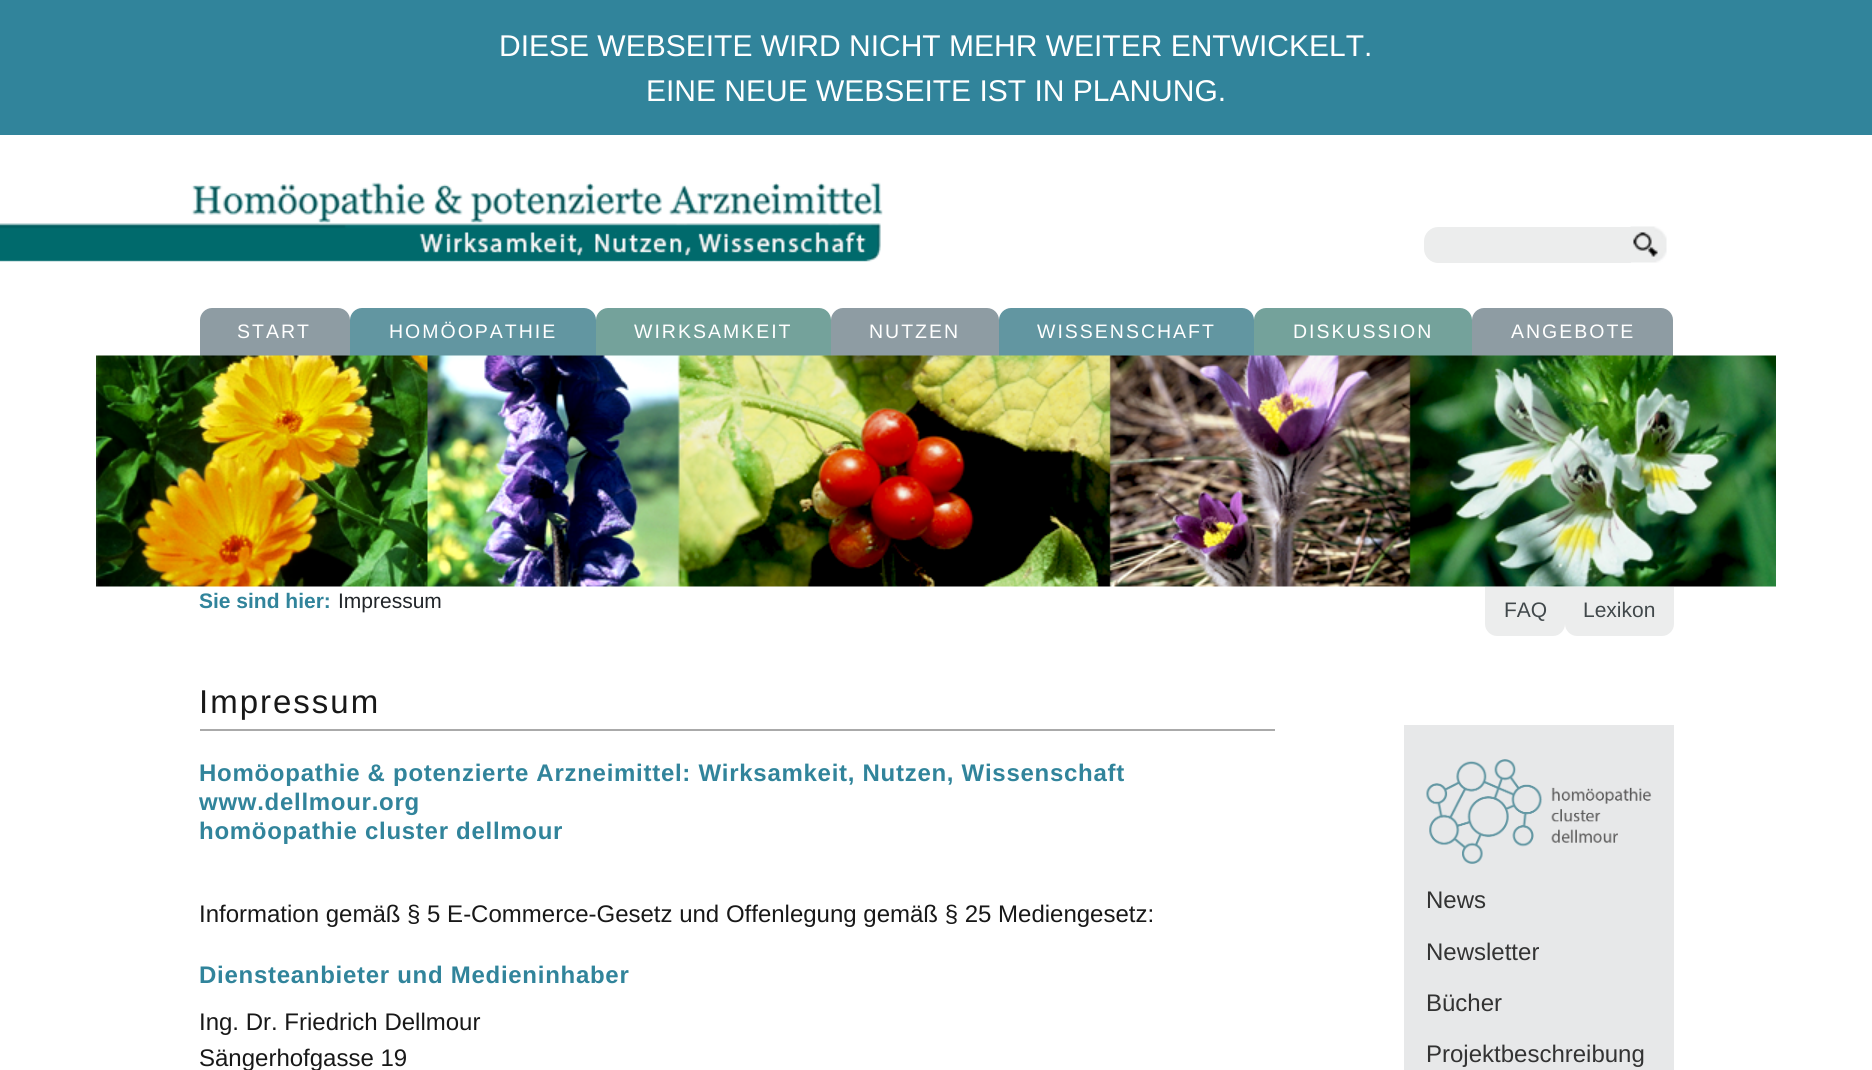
import math
import cairo


def use_color(cr, r, g, b):
  cr.set_source_rgb(r / 255, g / 255, b / 255)

def text(cr, x, y, s, family, size, color, bold=False, italic=False):
  cr.select_font_face(family, cairo.FONT_SLANT_ITALIC if italic else cairo.FONT_SLANT_NORMAL, cairo.FONT_WEIGHT_BOLD if bold else cairo.FONT_WEIGHT_NORMAL)
  cr.set_font_size(size)
  use_color(cr, *color)
  cr.move_to(x, y)
  cr.show_text(s)

def spaced_text(cr, x, y, s, letter, word):
  cr.move_to(x, y)
  for ch in s:
    cr.show_text(ch)
    cr.rel_move_to(letter + word * (ch == ' '), 0)

def box(cr, x, y, w, h, *color):
  use_color(cr, *color)
  cr.rectangle(x, y, w, h)
  cr.fill()

def picture(cr, path, x, y, w, h):
  cr.save()
  cr.set_source_surface(cairo.ImageSurface.create_from_png(path), x, y)
  cr.rectangle(x, y, w, h)
  cr.fill()
  cr.restore()

def draw(cr):
  use_color(cr, 255, 255, 255)
  cr.paint()
  box(cr, 0, 0, 1872, 135, 49, 132, 155)
  picture(cr, "img_01.png", 0, 223, 96, 39)
  picture(cr, "img_02.png", 96, 182, 787, 80)
  use_color(cr, 236, 237, 237)
  cr.new_path()
  cr.move_to(1438, 227)
  cr.line_to(1635, 227)
  cr.line_to(1635, 263)
  cr.line_to(1438, 263)
  cr.curve_to(1430.5, 263, 1424, 256.5, 1424, 249)
  cr.line_to(1424, 241)
  cr.curve_to(1424, 233.5, 1430.5, 227, 1438, 227)
  cr.close_path()
  cr.fill()
  box(cr, 1631, 227, 4, 36, 255, 255, 255)
  picture(cr, "img_03.png", 1630, 226, 37, 37)
  use_color(cr, 142, 156, 163)
  cr.new_path()
  cr.move_to(212, 308)
  cr.line_to(338, 308)
  cr.curve_to(344.5, 308, 350, 313.5, 350, 320)
  cr.line_to(350, 356)
  cr.line_to(200, 356)
  cr.line_to(200, 320)
  cr.curve_to(200, 313.5, 205.5, 308, 212, 308)
  cr.close_path()
  cr.fill()
  use_color(cr, 98, 150, 161)
  cr.new_path()
  cr.move_to(362, 308)
  cr.line_to(584, 308)
  cr.curve_to(590.5, 308, 596, 313.5, 596, 320)
  cr.line_to(596, 356)
  cr.line_to(350, 356)
  cr.line_to(350, 320)
  cr.curve_to(350, 313.5, 355.5, 308, 362, 308)
  cr.close_path()
  cr.fill()
  use_color(cr, 116, 162, 155)
  cr.new_path()
  cr.move_to(608, 308)
  cr.line_to(819, 308)
  cr.curve_to(825.5, 308, 831, 313.5, 831, 320)
  cr.line_to(831, 356)
  cr.line_to(596, 356)
  cr.line_to(596, 320)
  cr.curve_to(596, 313.5, 601.5, 308, 608, 308)
  cr.close_path()
  cr.fill()
  use_color(cr, 142, 156, 163)
  cr.new_path()
  cr.move_to(843, 308)
  cr.line_to(987, 308)
  cr.curve_to(993.5, 308, 999, 313.5, 999, 320)
  cr.line_to(999, 356)
  cr.line_to(831, 356)
  cr.line_to(831, 320)
  cr.curve_to(831, 313.5, 836.5, 308, 843, 308)
  cr.close_path()
  cr.fill()
  use_color(cr, 98, 150, 161)
  cr.new_path()
  cr.move_to(1011, 308)
  cr.line_to(1242, 308)
  cr.curve_to(1248.5, 308, 1254, 313.5, 1254, 320)
  cr.line_to(1254, 356)
  cr.line_to(999, 356)
  cr.line_to(999, 320)
  cr.curve_to(999, 313.5, 1004.5, 308, 1011, 308)
  cr.close_path()
  cr.fill()
  use_color(cr, 116, 162, 155)
  cr.new_path()
  cr.move_to(1266, 308)
  cr.line_to(1460, 308)
  cr.curve_to(1466.5, 308, 1472, 313.5, 1472, 320)
  cr.line_to(1472, 356)
  cr.line_to(1254, 356)
  cr.line_to(1254, 320)
  cr.curve_to(1254, 313.5, 1259.5, 308, 1266, 308)
  cr.close_path()
  cr.fill()
  use_color(cr, 142, 156, 163)
  cr.new_path()
  cr.move_to(1484, 308)
  cr.line_to(1661, 308)
  cr.curve_to(1667.5, 308, 1673, 313.5, 1673, 320)
  cr.line_to(1673, 356)
  cr.line_to(1472, 356)
  cr.line_to(1472, 320)
  cr.curve_to(1472, 313.5, 1477.5, 308, 1484, 308)
  cr.close_path()
  cr.fill()
  picture(cr, "img_04.png", 96, 355, 1680, 232)
  use_color(cr, 236, 237, 237)
  cr.new_path()
  cr.move_to(1485, 587)
  cr.line_to(1565, 587)
  cr.line_to(1565, 624)
  cr.curve_to(1565, 630.5, 1559.5, 636, 1553, 636)
  cr.line_to(1497, 636)
  cr.curve_to(1490.5, 636, 1485, 630.5, 1485, 624)
  cr.close_path()
  cr.fill()
  cr.new_path()
  cr.move_to(1565, 587)
  cr.line_to(1674, 587)
  cr.line_to(1674, 624)
  cr.curve_to(1674, 630.5, 1668.5, 636, 1662, 636)
  cr.line_to(1577, 636)
  cr.curve_to(1570.5, 636, 1565, 630.5, 1565, 624)
  cr.close_path()
  cr.fill()
  box(cr, 200, 729, 1075, 2, 170, 170, 170)
  box(cr, 1404, 725, 270, 345, 231, 232, 233)
  picture(cr, "img_05.png", 1426, 759, 226, 105)
  text(cr, 499, 56, "DIESE WEBSEITE WIRD NICHT MEHR WEITER ENTWICKELT.", "Liberation Sans", 30, (255, 255, 255))
  text(cr, 646, 101, "EINE NEUE WEBSEITE IST IN PLANUNG.", "Liberation Sans", 30, (255, 255, 255))
  cr.set_font_size(19.5)
  spaced_text(cr, 237, 338, "START", 2, 0)
  spaced_text(cr, 389, 338, "HOMÖOPATHIE", 2, 0)
  spaced_text(cr, 634, 338, "WIRKSAMKEIT", 2, 0)
  spaced_text(cr, 869, 338, "NUTZEN", 2, 0)
  spaced_text(cr, 1037, 338, "WISSENSCHAFT", 2, 0)
  spaced_text(cr, 1293, 338, "DISKUSSION", 2, 0)
  spaced_text(cr, 1511, 338, "ANGEBOTE", 2, 0)
  text(cr, 199, 608, "Sie sind hier:", "Liberation Sans", 21, (49, 132, 155), bold=True)
  text(cr, 338, 608, "Impressum", "Liberation Sans", 21, (33, 37, 41))
  text(cr, 1504, 617, "FAQ", "Liberation Sans", 21, (65, 72, 75))
  text(cr, 1583, 617, "Lexikon", "Liberation Sans", 21, (65, 72, 75))
  cr.set_font_size(33)
  use_color(cr, 24, 24, 24)
  spaced_text(cr, 199, 713, "Impressum", 2, 0)
  cr.select_font_face("Liberation Sans", cairo.FONT_SLANT_NORMAL, cairo.FONT_WEIGHT_BOLD)
  cr.set_font_size(24)
  use_color(cr, 49, 132, 155)
  spaced_text(cr, 199, 781, "Homöopathie & potenzierte Arzneimittel: Wirksamkeit, Nutzen, Wissenschaft", 0.72, 0)
  spaced_text(cr, 199, 810, "www.dellmour.org", 0.72, 0)
  spaced_text(cr, 199, 839, "homöopathie cluster dellmour", 0.72, 0)
  text(cr, 199, 922, "Information gemäß § 5 E-Commerce-Gesetz und Offenlegung gemäß § 25 Mediengesetz:", "Liberation Sans", 24, (24, 24, 24))
  cr.select_font_face("Liberation Sans", cairo.FONT_SLANT_NORMAL, cairo.FONT_WEIGHT_BOLD)
  use_color(cr, 49, 132, 155)
  spaced_text(cr, 199, 983, "Diensteanbieter und Medieninhaber", 0.72, 0)
  text(cr, 199, 1030, "Ing. Dr. Friedrich Dellmour", "Liberation Sans", 24, (24, 24, 24))
  text(cr, 199, 1066, "Sängerhofgasse 19", "Liberation Sans", 24, (24, 24, 24))
  text(cr, 1426, 908, "News", "Liberation Sans", 24, (51, 51, 51))
  text(cr, 1426, 960, "Newsletter", "Liberation Sans", 24, (51, 51, 51))
  text(cr, 1426, 1011, "Bücher", "Liberation Sans", 24, (51, 51, 51))
  text(cr, 1426, 1062, "Projektbeschreibung", "Liberation Sans", 24, (51, 51, 51))


surface = cairo.ImageSurface(cairo.FORMAT_RGB24, 1872, 1070)
cr = cairo.Context(surface)
options = cairo.FontOptions()
options.set_hint_metrics(cairo.HINT_METRICS_OFF)
options.set_hint_style(cairo.HINT_STYLE_NONE)
cr.set_font_options(options)
cr.set_miter_limit(4)
draw(cr)
surface.write_to_png("out.png")
